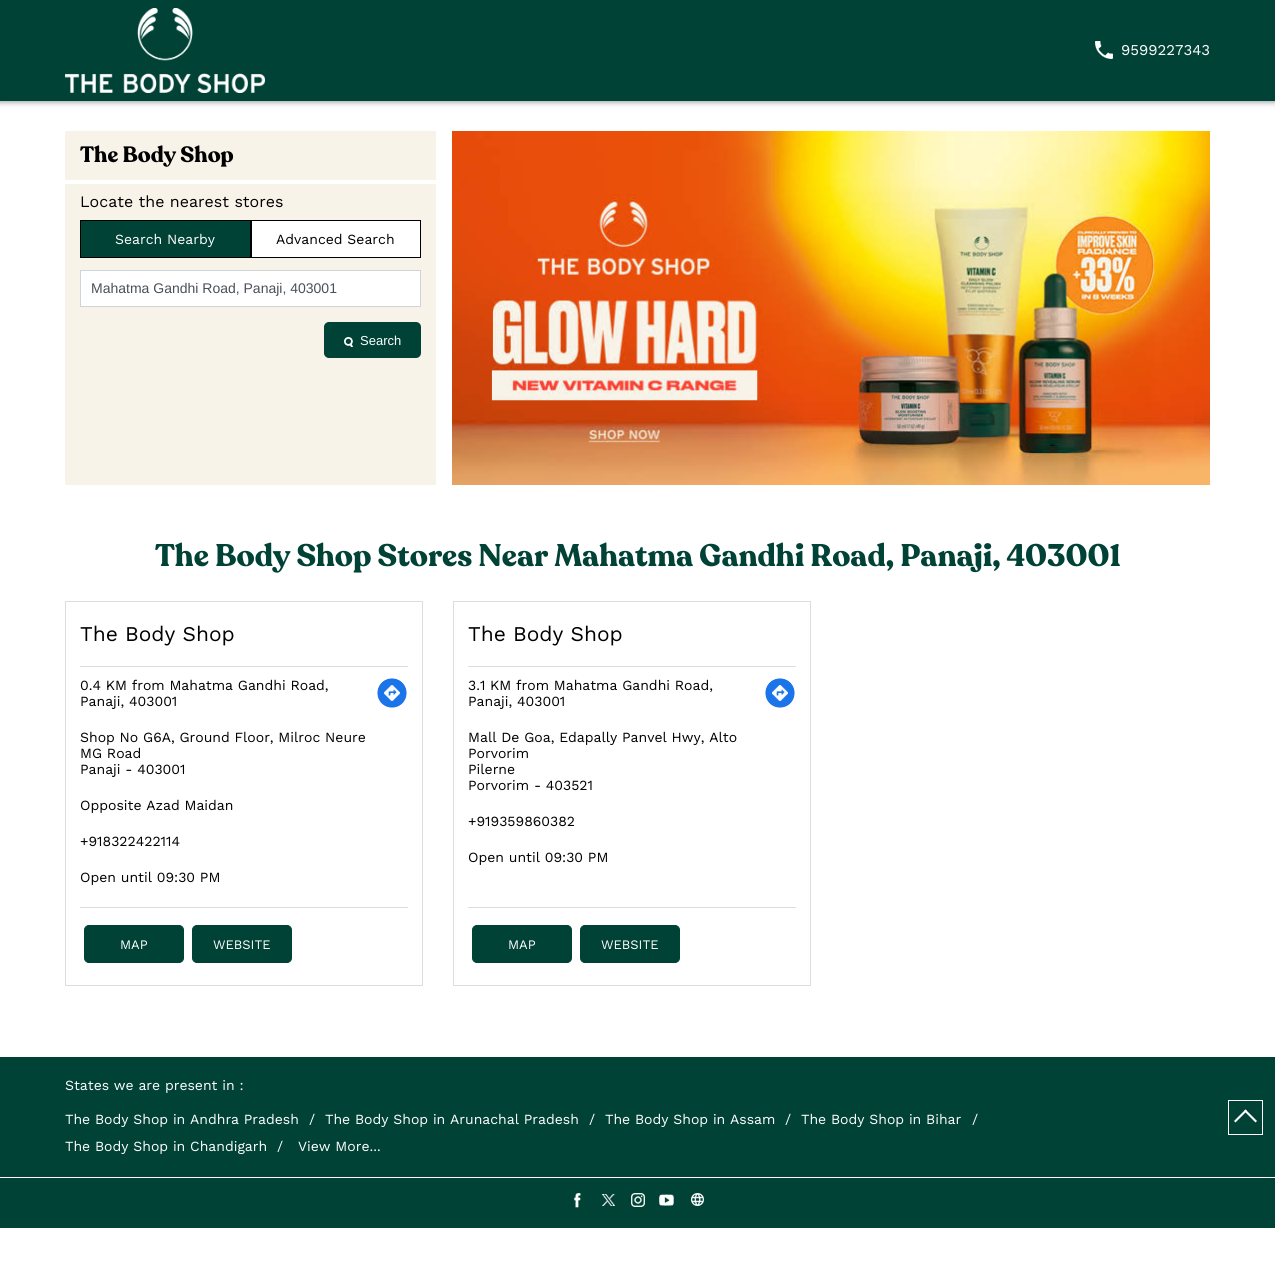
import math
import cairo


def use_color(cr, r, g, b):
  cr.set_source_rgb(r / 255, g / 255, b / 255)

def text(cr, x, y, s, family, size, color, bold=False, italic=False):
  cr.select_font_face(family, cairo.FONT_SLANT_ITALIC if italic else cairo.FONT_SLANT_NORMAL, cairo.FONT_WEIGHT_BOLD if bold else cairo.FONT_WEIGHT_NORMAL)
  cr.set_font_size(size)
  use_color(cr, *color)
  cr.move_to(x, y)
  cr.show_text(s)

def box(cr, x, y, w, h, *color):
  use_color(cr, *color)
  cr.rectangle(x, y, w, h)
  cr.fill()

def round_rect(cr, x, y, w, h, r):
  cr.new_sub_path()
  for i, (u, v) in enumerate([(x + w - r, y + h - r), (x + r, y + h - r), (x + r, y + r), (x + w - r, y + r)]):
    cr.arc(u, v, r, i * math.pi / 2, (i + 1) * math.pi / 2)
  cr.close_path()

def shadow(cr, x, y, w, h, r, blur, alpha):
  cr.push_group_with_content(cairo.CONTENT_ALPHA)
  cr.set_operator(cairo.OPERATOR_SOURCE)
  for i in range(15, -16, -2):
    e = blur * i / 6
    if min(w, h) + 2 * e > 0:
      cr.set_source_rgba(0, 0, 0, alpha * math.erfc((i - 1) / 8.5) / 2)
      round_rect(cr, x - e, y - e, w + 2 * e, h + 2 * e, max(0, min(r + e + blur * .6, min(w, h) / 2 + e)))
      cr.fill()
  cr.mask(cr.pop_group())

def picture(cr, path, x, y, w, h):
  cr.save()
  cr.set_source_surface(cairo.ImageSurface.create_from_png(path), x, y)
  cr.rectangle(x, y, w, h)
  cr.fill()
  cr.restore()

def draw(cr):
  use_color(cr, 255, 255, 255)
  cr.paint()
  use_color(cr, 0, 0, 0)
  shadow(cr, -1, -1, 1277, 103, 0, 3, 0.4)
  box(cr, 0, 0, 1275, 101, 0, 66, 54)
  picture(cr, "img_01.png", 65, 8, 200, 85)
  picture(cr, "img_02.png", 1095, 41, 18, 18)
  box(cr, 65, 131, 371, 354, 248, 243, 232)
  box(cr, 65, 180, 371, 4, 255, 255, 255)
  use_color(cr, 0, 66, 54)
  cr.rectangle(80.5, 220.5, 170, 37)
  cr.fill_preserve()
  use_color(cr, 0, 0, 0)
  cr.set_line_width(1)
  cr.stroke()
  use_color(cr, 255, 255, 255)
  cr.rectangle(251.5, 220.5, 169, 37)
  cr.fill_preserve()
  use_color(cr, 0, 0, 0)
  cr.stroke()
  use_color(cr, 255, 255, 255)
  cr.rectangle(80.5, 270.5, 340, 36)
  cr.fill_preserve()
  use_color(cr, 206, 212, 218)
  cr.stroke()
  use_color(cr, 0, 66, 54)
  round_rect(cr, 324, 322, 97, 36, 5)
  cr.fill()
  picture(cr, "img_03.png", 344, 337, 9, 10)
  picture(cr, "img_04.png", 452, 131, 758, 354)
  cr.rectangle(65.5, 601.5, 357, 384)
  use_color(cr, 221, 221, 221)
  cr.stroke()
  box(cr, 80, 666, 328, 1, 221, 221, 221)
  picture(cr, "img_05.png", 377, 678, 30, 30)
  box(cr, 80, 907, 328, 1, 221, 221, 221)
  use_color(cr, 0, 66, 54)
  round_rect(cr, 84.5, 925.5, 99, 37, 4.5)
  cr.fill_preserve()
  cr.stroke()
  round_rect(cr, 192.5, 925.5, 99, 37, 4.5)
  cr.fill_preserve()
  cr.stroke()
  cr.rectangle(453.5, 601.5, 357, 384)
  use_color(cr, 221, 221, 221)
  cr.stroke()
  box(cr, 468, 666, 328, 1, 221, 221, 221)
  picture(cr, "img_05.png", 765, 678, 30, 30)
  box(cr, 468, 907, 328, 1, 221, 221, 221)
  use_color(cr, 0, 66, 54)
  round_rect(cr, 472.5, 925.5, 99, 37, 4.5)
  cr.fill_preserve()
  cr.stroke()
  round_rect(cr, 580.5, 925.5, 99, 37, 4.5)
  cr.fill_preserve()
  cr.stroke()
  box(cr, 0, 1057, 1275, 171, 0, 66, 54)
  box(cr, 0, 1177, 1275, 1, 255, 255, 255)
  picture(cr, "img_06.png", 574, 1193, 7, 15)
  picture(cr, "img_07.png", 602, 1194, 13, 12)
  picture(cr, "img_08.png", 631, 1193, 14, 14)
  picture(cr, "img_09.png", 659, 1194, 15, 12)
  picture(cr, "img_10.png", 691, 1193, 13, 13)
  cr.rectangle(1228.5, 1100.5, 34, 34)
  cr.stroke()
  cr.new_path()
  cr.move_to(1235.5, 1122.5)
  cr.line_to(1234, 1121)
  cr.line_to(1245.5, 1109.5)
  cr.line_to(1247, 1111)
  cr.close_path()
  cr.fill()
  cr.new_path()
  cr.move_to(1255.5, 1122.5)
  cr.line_to(1244, 1111)
  cr.line_to(1245.5, 1109.5)
  cr.line_to(1257, 1121)
  cr.close_path()
  cr.fill()
  text(cr, 1121, 55, "9599227343", "Work Sans", 15, (255, 255, 255))
  text(cr, 80, 162, "The Body Shop", "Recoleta", 22, (0, 0, 0), bold=True)
  text(cr, 80, 207, "Locate the nearest stores", "Work Sans", 16, (0, 0, 0))
  text(cr, 115, 244, "Search Nearby", "Work Sans", 14, (255, 255, 255))
  text(cr, 276, 244, "Advanced Search", "Work Sans", 14, (0, 0, 0))
  text(cr, 91, 293, "Mahatma Gandhi Road, Panaji, 403001", "Liberation Sans", 14, (73, 80, 87))
  text(cr, 360, 345, "Search", "Liberation Sans", 13, (255, 255, 255))
  text(cr, 155, 566, "The Body Shop Stores Near Mahatma Gandhi Road, Panaji, 403001", "Recoleta", 31, (0, 66, 54), bold=True)
  text(cr, 80, 641, "The Body Shop", "Work Sans", 21, (0, 0, 0))
  text(cr, 80, 690, "0.4 KM from Mahatma Gandhi Road,", "Work Sans", 14, (0, 0, 0))
  text(cr, 80, 706, "Panaji, 403001", "Work Sans", 14, (0, 0, 0))
  text(cr, 80, 742, "Shop No G6A, Ground Floor, Milroc Neure", "Work Sans", 14, (0, 0, 0))
  text(cr, 80, 758, "MG Road", "Work Sans", 14, (0, 0, 0))
  text(cr, 80, 774, "Panaji - 403001", "Work Sans", 14, (0, 0, 0))
  text(cr, 80, 810, "Opposite Azad Maidan", "Work Sans", 14, (0, 0, 0))
  text(cr, 80, 846, "+918322422114", "Work Sans", 14, (0, 0, 0))
  text(cr, 80, 882, "Open until 09:30 PM", "Work Sans", 14, (0, 0, 0))
  text(cr, 120, 949, "MAP", "Work Sans", 13, (255, 255, 255))
  text(cr, 213, 949, "WEBSITE", "Work Sans", 13, (255, 255, 255))
  text(cr, 468, 641, "The Body Shop", "Work Sans", 21, (0, 0, 0))
  text(cr, 468, 690, "3.1 KM from Mahatma Gandhi Road,", "Work Sans", 14, (0, 0, 0))
  text(cr, 468, 706, "Panaji, 403001", "Work Sans", 14, (0, 0, 0))
  text(cr, 468, 742, "Mall De Goa, Edapally Panvel Hwy, Alto", "Work Sans", 14, (0, 0, 0))
  text(cr, 468, 758, "Porvorim", "Work Sans", 14, (0, 0, 0))
  text(cr, 468, 774, "Pilerne", "Work Sans", 14, (0, 0, 0))
  text(cr, 468, 790, "Porvorim - 403521", "Work Sans", 14, (0, 0, 0))
  text(cr, 468, 826, "+919359860382", "Work Sans", 14, (0, 0, 0))
  text(cr, 468, 862, "Open until 09:30 PM", "Work Sans", 14, (0, 0, 0))
  text(cr, 508, 949, "MAP", "Work Sans", 13, (255, 255, 255))
  text(cr, 601, 949, "WEBSITE", "Work Sans", 13, (255, 255, 255))
  text(cr, 65, 1090, "States we are present in :", "Work Sans", 14, (255, 255, 255))
  text(cr, 65, 1124, "The Body Shop in Andhra Pradesh", "Work Sans", 14, (255, 255, 255))
  text(cr, 309, 1124, "/", "Work Sans", 14, (255, 255, 255))
  text(cr, 325, 1124, "The Body Shop in Arunachal Pradesh", "Work Sans", 14, (255, 255, 255))
  text(cr, 589, 1124, "/", "Work Sans", 14, (255, 255, 255))
  text(cr, 605, 1124, "The Body Shop in Assam", "Work Sans", 14, (255, 255, 255))
  text(cr, 785, 1124, "/", "Work Sans", 14, (255, 255, 255))
  text(cr, 801, 1124, "The Body Shop in Bihar", "Work Sans", 14, (255, 255, 255))
  text(cr, 972, 1124, "/", "Work Sans", 14, (255, 255, 255))
  text(cr, 65, 1151, "The Body Shop in Chandigarh", "Work Sans", 14, (255, 255, 255))
  text(cr, 277, 1151, "/", "Work Sans", 14, (255, 255, 255))
  text(cr, 298, 1151, "View More...", "Work Sans", 14, (255, 255, 255))


surface = cairo.ImageSurface(cairo.FORMAT_RGB24, 1275, 1275)
cr = cairo.Context(surface)
options = cairo.FontOptions()
options.set_hint_metrics(cairo.HINT_METRICS_OFF)
options.set_hint_style(cairo.HINT_STYLE_NONE)
cr.set_font_options(options)
cr.set_miter_limit(4)
draw(cr)
surface.write_to_png("out.png")
